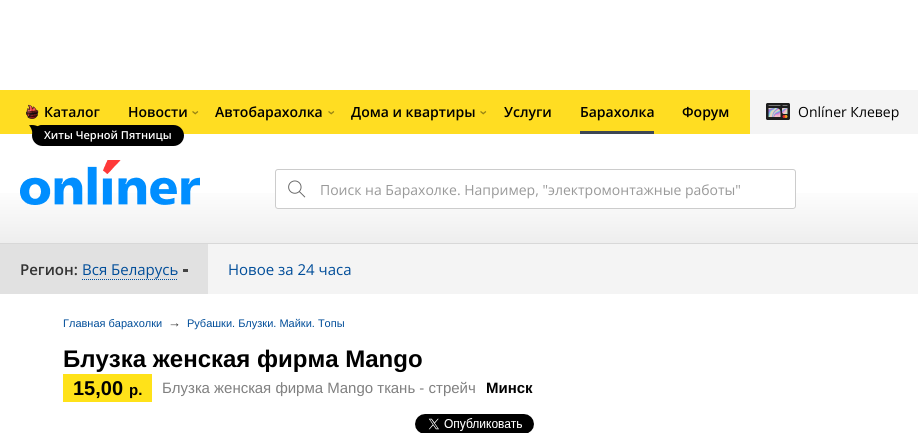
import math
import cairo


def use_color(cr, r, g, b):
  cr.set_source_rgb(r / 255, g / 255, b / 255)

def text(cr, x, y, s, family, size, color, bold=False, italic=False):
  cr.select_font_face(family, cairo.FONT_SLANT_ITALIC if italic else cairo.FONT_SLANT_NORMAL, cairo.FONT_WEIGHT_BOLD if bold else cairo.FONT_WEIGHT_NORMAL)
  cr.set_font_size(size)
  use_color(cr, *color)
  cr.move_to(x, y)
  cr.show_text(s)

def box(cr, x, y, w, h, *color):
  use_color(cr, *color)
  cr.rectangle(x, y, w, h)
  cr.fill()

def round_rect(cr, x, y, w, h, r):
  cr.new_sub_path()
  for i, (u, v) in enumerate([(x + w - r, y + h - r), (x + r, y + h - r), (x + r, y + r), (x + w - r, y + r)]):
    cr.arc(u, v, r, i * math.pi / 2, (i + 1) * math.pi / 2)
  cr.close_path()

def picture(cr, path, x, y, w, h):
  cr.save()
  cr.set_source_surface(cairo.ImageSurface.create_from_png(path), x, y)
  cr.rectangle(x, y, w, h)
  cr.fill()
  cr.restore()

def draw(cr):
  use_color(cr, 255, 255, 255)
  cr.paint()
  gradient = cairo.LinearGradient(575, 90, 575, 280)
  gradient.add_color_stop_rgba(0, 1, 1, 1, 1)
  gradient.add_color_stop_rgba(0.5, 1, 1, 1, 1)
  gradient.add_color_stop_rgba(1, 0.89, 0.89, 0.89, 1)
  cr.set_source(gradient)
  cr.rectangle(0, 193, 918, 50)
  cr.fill()
  box(cr, 750, 90, 168, 44, 244, 244, 244)
  box(cr, 0, 90, 750, 44, 255, 221, 34)
  picture(cr, "img_01.png", 26, 104, 13, 15)
  use_color(cr, 0, 0, 0)
  round_rect(cr, 32, 125, 152, 21, 10.5)
  cr.fill()
  picture(cr, "img_02.png", 29, 125, 13, 10)
  box(cr, 580, 131, 74, 3, 62, 71, 83)
  picture(cr, "img_03.png", 766, 103, 24, 17)
  picture(cr, "img_04.png", 20, 160, 180, 45)
  use_color(cr, 255, 255, 255)
  round_rect(cr, 275, 169, 521, 40, 3)
  cr.fill()
  picture(cr, "img_05.png", 288, 180, 18, 18)
  round_rect(cr, 275.5, 169.5, 520, 39, 2.5)
  use_color(cr, 204, 204, 204)
  cr.set_line_width(1)
  cr.stroke()
  box(cr, 0, 243, 918, 1, 216, 216, 216)
  box(cr, 208, 244, 710, 50, 244, 244, 244)
  box(cr, 0, 244, 208, 50, 225, 225, 225)
  cr.new_path()
  cr.move_to(82, 279.5)
  cr.line_to(178, 279.5)
  use_color(cr, 0, 77, 153)
  cr.set_dash([1, 1])
  cr.stroke()
  box(cr, 183, 269, 5, 3, 68, 68, 68)
  box(cr, 63, 374, 89, 28, 255, 226, 25)
  picture(cr, "img_06.png", 415, 414, 119, 19)
  text(cr, 44, 117, "Каталог", "Open Sans SemiBold", 14, (0, 0, 0))
  text(cr, 44, 139, "Хиты Черной Пятницы", "Open Sans SemiBold", 11, (255, 255, 255))
  text(cr, 215, 117, "Автобарахолка", "Open Sans SemiBold", 14, (0, 0, 0))
  cr.save()
  cr.translate(335, 115)
  cr.rotate(-90 * math.pi / 180)
  text(cr, 0, 0, "‹", "Open Sans SemiBold", 14, (153, 133, 20))
  cr.restore()
  text(cr, 682, 117, "Форум", "Open Sans SemiBold", 14, (0, 0, 0))
  text(cr, 128, 117, "Новости", "Open Sans SemiBold", 14, (0, 0, 0))
  cr.save()
  cr.translate(199, 115)
  cr.rotate(-90 * math.pi / 180)
  text(cr, 0, 0, "‹", "Open Sans SemiBold", 14, (153, 133, 20))
  cr.restore()
  text(cr, 351, 117, "Дома и квартиры", "Open Sans SemiBold", 14, (0, 0, 0))
  cr.save()
  cr.translate(487, 115)
  cr.rotate(-90 * math.pi / 180)
  text(cr, 0, 0, "‹", "Open Sans SemiBold", 14, (153, 133, 20))
  cr.restore()
  text(cr, 504, 117, "Услуги", "Open Sans SemiBold", 14, (0, 0, 0))
  text(cr, 580, 117, "Барахолка", "Open Sans SemiBold", 14, (0, 0, 0))
  text(cr, 798, 117, "Onlíner Клевер", "Open Sans", 14, (0, 0, 0))
  text(cr, 320, 195, "Поиск на Барахолке. Например, \"электромонтажные работы\"", "Open Sans", 14, (153, 153, 153))
  text(cr, 20, 275, "Регион:", "Open Sans SemiBold", 15, (51, 51, 51))
  text(cr, 82, 275, "Вся Беларусь", "Open Sans", 15, (0, 77, 153))
  text(cr, 228, 275, "Новое за 24 часа", "Open Sans", 15, (0, 77, 153))
  text(cr, 63, 327, "Главная барахолки", "Liberation Sans", 11, (0, 77, 153))
  text(cr, 168, 327, "→", "Liberation Sans", 13, (51, 51, 51))
  text(cr, 187, 327, "Рубашки. Блузки. Майки. Топы", "Liberation Sans", 11, (0, 77, 153))
  text(cr, 63, 367, "Блузка женская фирма Mango", "Liberation Sans", 24, (0, 0, 0), bold=True)
  text(cr, 73, 395, "15,00", "Liberation Sans", 20, (0, 0, 0), bold=True)
  text(cr, 129, 395, "р.", "Liberation Sans", 15, (0, 0, 0), bold=True)
  text(cr, 162, 393, "Блузка женская фирма Mango ткань - стрейч", "Liberation Sans", 15, (128, 128, 128))
  text(cr, 486, 393, "Минск", "Liberation Sans", 15, (0, 0, 0), bold=True)


surface = cairo.ImageSurface(cairo.FORMAT_RGB24, 918, 433)
cr = cairo.Context(surface)
options = cairo.FontOptions()
options.set_hint_metrics(cairo.HINT_METRICS_OFF)
options.set_hint_style(cairo.HINT_STYLE_NONE)
cr.set_font_options(options)
cr.set_miter_limit(4)
draw(cr)
surface.write_to_png("out.png")
